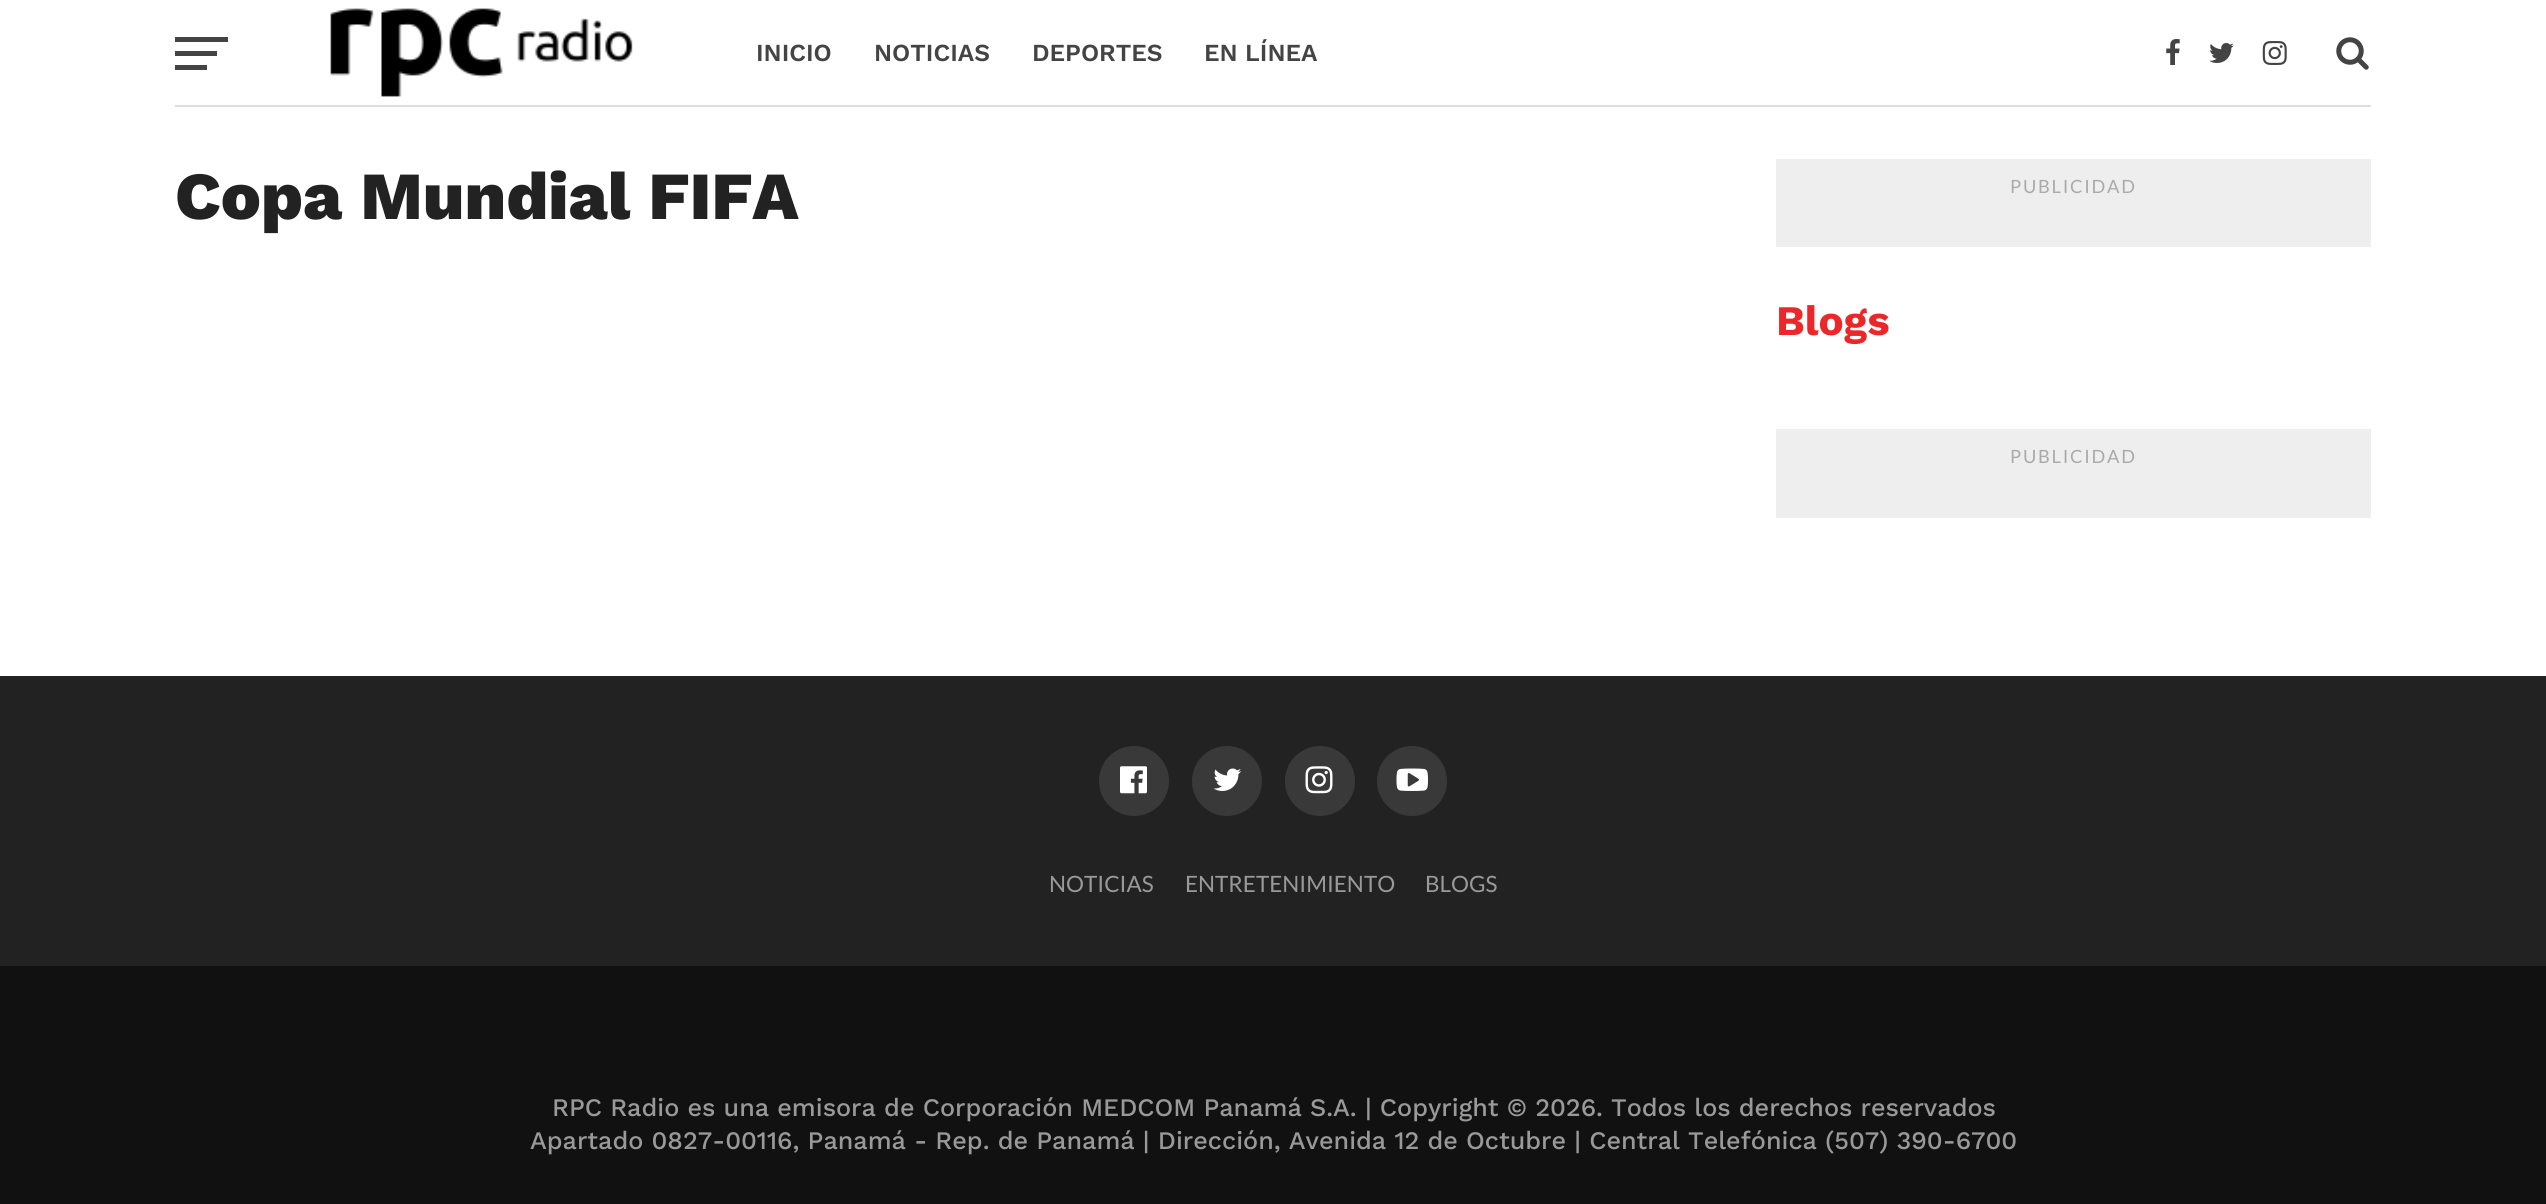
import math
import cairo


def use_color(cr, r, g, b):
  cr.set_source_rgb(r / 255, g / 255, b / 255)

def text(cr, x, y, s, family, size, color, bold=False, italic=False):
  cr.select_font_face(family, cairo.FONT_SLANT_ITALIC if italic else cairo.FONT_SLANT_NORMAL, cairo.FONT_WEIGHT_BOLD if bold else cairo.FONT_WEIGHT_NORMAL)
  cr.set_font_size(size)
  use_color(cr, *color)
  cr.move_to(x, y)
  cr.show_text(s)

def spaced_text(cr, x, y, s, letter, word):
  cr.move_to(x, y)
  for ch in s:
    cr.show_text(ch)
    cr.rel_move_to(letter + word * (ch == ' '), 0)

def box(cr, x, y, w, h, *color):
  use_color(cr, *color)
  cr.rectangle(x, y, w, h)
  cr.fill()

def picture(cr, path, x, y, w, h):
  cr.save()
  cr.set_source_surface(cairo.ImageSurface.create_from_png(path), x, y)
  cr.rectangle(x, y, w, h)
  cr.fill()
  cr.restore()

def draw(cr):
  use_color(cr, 255, 255, 255)
  cr.paint()
  box(cr, 175, 37, 53, 5, 68, 68, 68)
  box(cr, 175, 51, 42, 5, 68, 68, 68)
  box(cr, 175, 65, 32, 5, 68, 68, 68)
  picture(cr, "img_01.png", 330, 8, 303, 89)
  picture(cr, "img_02.png", 2166, 39, 14, 26)
  picture(cr, "img_03.png", 2209, 43, 25, 20)
  picture(cr, "img_04.png", 2262, 41, 25, 24)
  picture(cr, "img_05.png", 2336, 37, 33, 33)
  box(cr, 175, 105, 2196, 2, 221, 221, 221)
  box(cr, 1776, 159, 595, 88, 238, 238, 238)
  box(cr, 1776, 429, 595, 89, 238, 238, 238)
  box(cr, 0, 676, 2546, 290, 34, 34, 34)
  use_color(cr, 57, 57, 57)
  cr.arc(1134, 781, 35, 0, 2 * math.pi)
  cr.fill()
  picture(cr, "img_06.png", 1120, 766, 27, 28)
  cr.arc(1227, 781, 35, 0, 2 * math.pi)
  cr.fill()
  picture(cr, "img_07.png", 1213, 768, 29, 23)
  cr.arc(1320, 781, 35, 0, 2 * math.pi)
  cr.fill()
  picture(cr, "img_08.png", 1305, 766, 28, 28)
  cr.arc(1412, 781, 35, 0, 2 * math.pi)
  cr.fill()
  picture(cr, "img_09.png", 1396, 768, 32, 23)
  box(cr, 0, 966, 2546, 238, 17, 17, 17)
  text(cr, 756, 61, "INICIO", "Work Sans SemiBold", 24.5, (68, 68, 68))
  text(cr, 874, 61, "NOTICIAS", "Work Sans SemiBold", 24.5, (68, 68, 68))
  text(cr, 1032, 61, "DEPORTES", "Work Sans SemiBold", 24.5, (68, 68, 68))
  text(cr, 1204, 61, "EN LÍNEA", "Work Sans SemiBold", 24.5, (68, 68, 68))
  text(cr, 175, 219, "Copa Mundial FIFA", "Work Sans ExtraBold", 67.25, (34, 34, 34))
  cr.select_font_face("Lato")
  cr.set_font_size(18.25)
  use_color(cr, 170, 170, 170)
  spaced_text(cr, 2010, 193, "PUBLICIDAD", 1.75, 0)
  text(cr, 1776, 335, "Blogs", "Work Sans", 42, (235, 39, 41), bold=True)
  cr.select_font_face("Lato")
  cr.set_font_size(18.25)
  use_color(cr, 170, 170, 170)
  spaced_text(cr, 2010, 463, "PUBLICIDAD", 1.75, 0)
  text(cr, 1049, 892, "NOTICIAS", "Lato", 22.5, (153, 153, 153))
  text(cr, 1185, 892, "ENTRETENIMIENTO", "Lato", 22.5, (153, 153, 153))
  text(cr, 1425, 892, "BLOGS", "Lato", 22.5, (153, 153, 153))
  text(cr, 552, 1116, "RPC Radio es una emisora de Corporación MEDCOM Panamá S.A. | Copyright © 2026. Todos los derechos reservados", "Work Sans Medium", 25.2, (153, 153, 153))
  text(cr, 530, 1149, "Apartado 0827-00116, Panamá - Rep. de Panamá | Dirección, Avenida 12 de Octubre | Central Telefónica (507) 390-6700", "Work Sans Medium", 25.2, (153, 153, 153))


surface = cairo.ImageSurface(cairo.FORMAT_RGB24, 2546, 1204)
cr = cairo.Context(surface)
options = cairo.FontOptions()
options.set_hint_metrics(cairo.HINT_METRICS_OFF)
options.set_hint_style(cairo.HINT_STYLE_NONE)
cr.set_font_options(options)
cr.set_miter_limit(4)
draw(cr)
surface.write_to_png("out.png")
